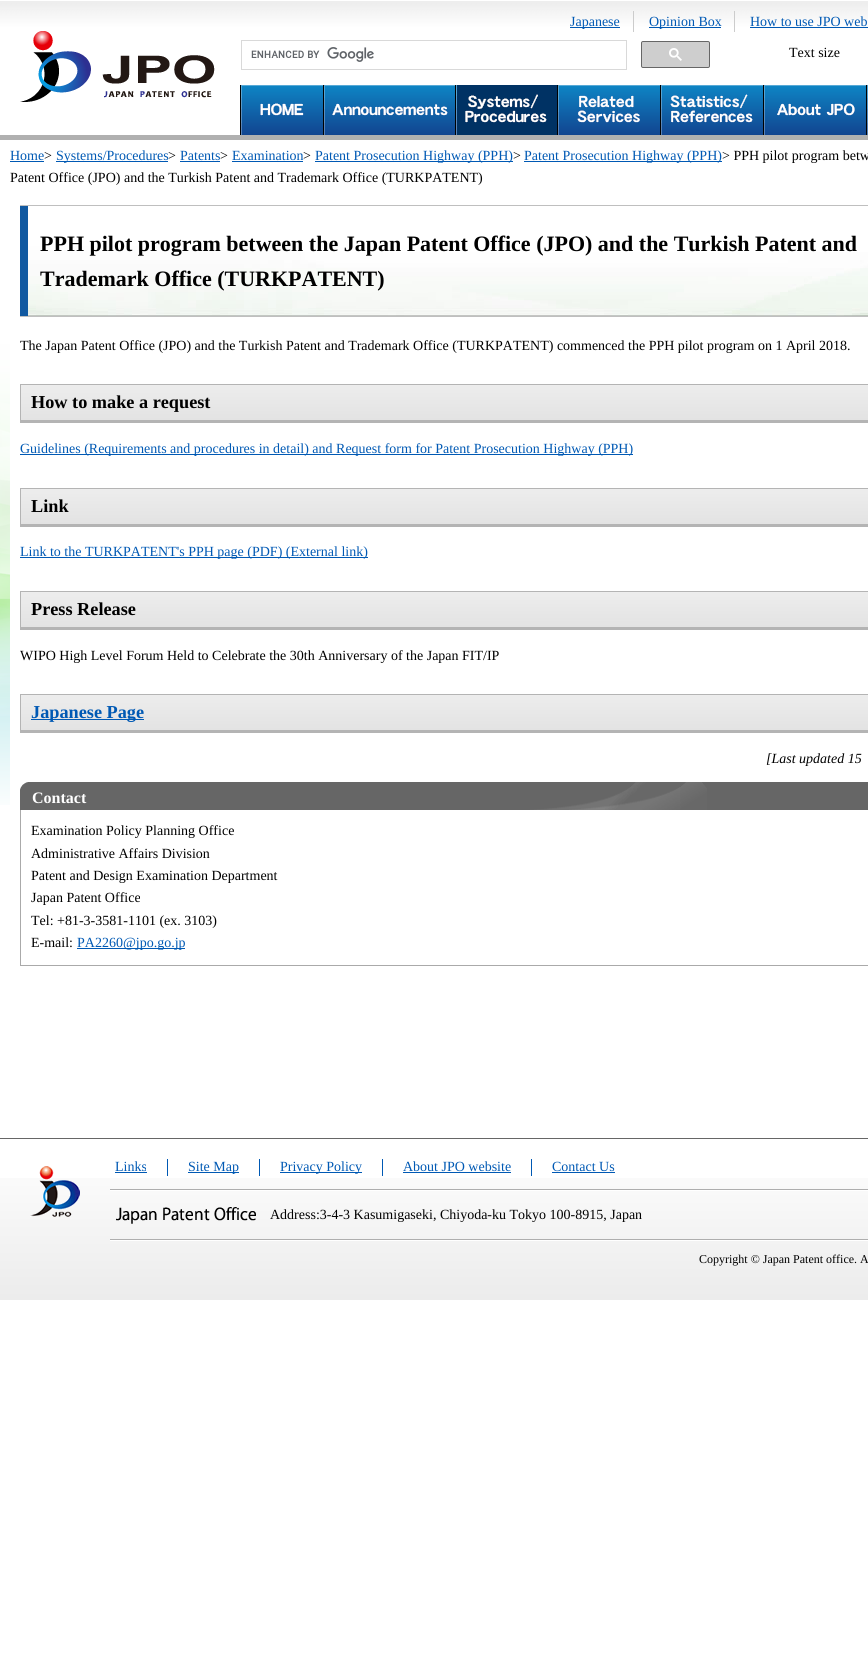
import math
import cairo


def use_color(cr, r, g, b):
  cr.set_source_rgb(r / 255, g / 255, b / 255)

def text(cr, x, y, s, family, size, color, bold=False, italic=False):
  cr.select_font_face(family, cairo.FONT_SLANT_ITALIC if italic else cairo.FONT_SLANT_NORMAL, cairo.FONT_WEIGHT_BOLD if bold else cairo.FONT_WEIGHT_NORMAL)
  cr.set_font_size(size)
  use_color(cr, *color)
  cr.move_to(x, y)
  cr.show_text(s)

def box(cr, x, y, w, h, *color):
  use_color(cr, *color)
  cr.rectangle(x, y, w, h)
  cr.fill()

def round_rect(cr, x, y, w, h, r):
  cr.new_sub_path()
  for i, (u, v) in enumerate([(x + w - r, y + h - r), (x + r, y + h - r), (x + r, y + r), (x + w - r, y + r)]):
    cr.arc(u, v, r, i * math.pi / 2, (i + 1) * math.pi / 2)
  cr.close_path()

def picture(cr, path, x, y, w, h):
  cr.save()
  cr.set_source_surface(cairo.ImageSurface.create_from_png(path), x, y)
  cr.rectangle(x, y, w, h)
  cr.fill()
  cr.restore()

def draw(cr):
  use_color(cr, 255, 255, 255)
  cr.paint()
  picture(cr, "img_01.png", 0, 1, 868, 47)
  box(cr, 0, 135, 868, 5, 176, 176, 176)
  picture(cr, "img_02.png", 20, 31, 195, 71)
  box(cr, 633, 11, 1, 21, 204, 204, 204)
  box(cr, 570, 27, 50, 1, 0, 89, 180)
  box(cr, 734, 11, 1, 21, 204, 204, 204)
  box(cr, 649, 27, 72, 1, 0, 89, 180)
  box(cr, 750, 27, 118, 1, 0, 89, 180)
  cr.rectangle(241.5, 40.5, 385, 29)
  use_color(cr, 217, 217, 217)
  cr.set_line_width(1)
  cr.stroke()
  picture(cr, "img_03.png", 251, 47, 123, 15)
  use_color(cr, 206, 206, 206)
  round_rect(cr, 641.5, 41.5, 68, 26, 1.5)
  cr.fill_preserve()
  use_color(cr, 102, 102, 102)
  cr.stroke()
  picture(cr, "img_04.png", 669, 48, 13, 13)
  picture(cr, "img_05.png", 240, 85, 83, 50)
  picture(cr, "img_06.png", 323, 85, 132, 50)
  picture(cr, "img_07.png", 455, 85, 102, 50)
  picture(cr, "img_08.png", 557, 85, 103, 50)
  picture(cr, "img_09.png", 660, 85, 103, 50)
  picture(cr, "img_10.png", 763, 85, 103, 50)
  picture(cr, "img_11.png", 866, 85, 2, 50)
  picture(cr, "img_12.png", 0, 344, 10, 461)
  box(cr, 10, 161, 34, 1, 0, 89, 180)
  box(cr, 56, 161, 112, 1, 0, 89, 180)
  box(cr, 180, 161, 40, 1, 0, 89, 180)
  box(cr, 232, 161, 71, 1, 0, 89, 180)
  box(cr, 315, 161, 198, 1, 0, 89, 180)
  box(cr, 524, 161, 198, 1, 0, 89, 180)
  picture(cr, "img_13.png", 20, 206, 848, 110)
  box(cr, 20, 205, 848, 1, 191, 191, 191)
  box(cr, 20, 316, 848, 1, 191, 191, 191)
  picture(cr, "img_14.png", 21, 385, 847, 35)
  box(cr, 20, 384, 848, 1, 180, 180, 180)
  box(cr, 20, 420, 848, 3, 180, 180, 180)
  box(cr, 20, 384, 1, 39, 180, 180, 180)
  box(cr, 20, 454, 613, 1, 0, 89, 180)
  picture(cr, "img_14.png", 21, 489, 847, 35)
  box(cr, 20, 488, 848, 1, 180, 180, 180)
  box(cr, 20, 524, 848, 3, 180, 180, 180)
  box(cr, 20, 488, 1, 39, 180, 180, 180)
  box(cr, 20, 557, 348, 1, 0, 89, 180)
  picture(cr, "img_14.png", 21, 592, 847, 35)
  box(cr, 20, 591, 848, 1, 180, 180, 180)
  box(cr, 20, 627, 848, 3, 180, 180, 180)
  box(cr, 20, 591, 1, 39, 180, 180, 180)
  picture(cr, "img_14.png", 21, 695, 847, 35)
  box(cr, 20, 694, 848, 1, 180, 180, 180)
  box(cr, 20, 730, 848, 3, 180, 180, 180)
  box(cr, 20, 694, 1, 39, 180, 180, 180)
  box(cr, 31, 719, 113, 1, 0, 89, 180)
  box(cr, 707, 782, 161, 28, 102, 102, 102)
  picture(cr, "img_15.png", 20, 782, 687, 28)
  box(cr, 20, 965, 848, 1, 170, 170, 170)
  box(cr, 20, 810, 1, 156, 170, 170, 170)
  box(cr, 77, 948, 108, 1, 0, 89, 180)
  picture(cr, "img_16.png", 0, 1178, 868, 122)
  box(cr, 0, 1138, 868, 1, 102, 102, 102)
  picture(cr, "img_17.png", 30, 1166, 50, 51)
  picture(cr, "img_18.png", 110, 1189, 758, 2)
  box(cr, 167, 1159, 1, 17, 0, 89, 180)
  box(cr, 115, 1172, 32, 1, 0, 89, 180)
  box(cr, 259, 1159, 1, 17, 0, 89, 180)
  box(cr, 188, 1172, 51, 1, 0, 89, 180)
  box(cr, 382, 1159, 1, 17, 0, 89, 180)
  box(cr, 280, 1172, 82, 1, 0, 89, 180)
  box(cr, 531, 1159, 1, 17, 0, 89, 180)
  box(cr, 403, 1172, 108, 1, 0, 89, 180)
  box(cr, 552, 1172, 63, 1, 0, 89, 180)
  picture(cr, "img_18.png", 110, 1239, 758, 2)
  picture(cr, "img_19.png", 116, 1207, 140, 17)
  text(cr, 570, 26, "Japanese", "Liberation Serif", 14, (0, 89, 180))
  text(cr, 649, 26, "Opinion Box", "Liberation Serif", 14, (0, 89, 180))
  text(cr, 750, 26, "How to use JPO web", "Liberation Serif", 14, (0, 89, 180))
  text(cr, 789, 57, "Text size", "Liberation Serif", 14, (0, 0, 0))
  text(cr, 10, 160, "Home", "Liberation Serif", 14, (0, 89, 180))
  text(cr, 44, 160, ">", "Liberation Serif", 14, (0, 0, 0))
  text(cr, 56, 160, "Systems/Procedures", "Liberation Serif", 14, (0, 89, 180))
  text(cr, 168, 160, ">", "Liberation Serif", 14, (0, 0, 0))
  text(cr, 180, 160, "Patents", "Liberation Serif", 14, (0, 89, 180))
  text(cr, 220, 160, ">", "Liberation Serif", 14, (0, 0, 0))
  text(cr, 232, 160, "Examination", "Liberation Serif", 14, (0, 89, 180))
  text(cr, 303, 160, ">", "Liberation Serif", 14, (0, 0, 0))
  text(cr, 315, 160, "Patent Prosecution Highway (PPH)", "Liberation Serif", 14, (0, 89, 180))
  text(cr, 513, 160, ">", "Liberation Serif", 14, (0, 0, 0))
  text(cr, 524, 160, "Patent Prosecution Highway (PPH)", "Liberation Serif", 14, (0, 89, 180))
  text(cr, 722, 160, "> PPH pilot program betw", "Liberation Serif", 14, (0, 0, 0))
  text(cr, 10, 182, "Patent Office (JPO) and the Turkish Patent and Trademark Office (TURKPATENT)", "Liberation Serif", 14, (0, 0, 0))
  text(cr, 40, 251, "PPH pilot program between the Japan Patent Office (JPO) and the Turkish Patent and", "Liberation Serif", 22, (0, 0, 0), bold=True)
  text(cr, 40, 286, "Trademark Office (TURKPATENT)", "Liberation Serif", 22, (0, 0, 0), bold=True)
  text(cr, 20, 350, "The Japan Patent Office (JPO) and the Turkish Patent and Trademark Office (TURKPATENT) commenced the PPH pilot program on 1 April 2018.", "Liberation Serif", 14, (0, 0, 0))
  text(cr, 31, 408, "How to make a request", "Liberation Serif", 18.25, (0, 0, 0), bold=True)
  text(cr, 20, 453, "Guidelines (Requirements and procedures in detail) and Request form for Patent Prosecution Highway (PPH)", "Liberation Serif", 14, (0, 89, 180))
  text(cr, 31, 512, "Link", "Liberation Serif", 18.25, (0, 0, 0), bold=True)
  text(cr, 20, 556, "Link to the TURKPATENT's PPH page (PDF) (External link)", "Liberation Serif", 14, (0, 89, 180))
  text(cr, 31, 615, "Press Release", "Liberation Serif", 18.25, (0, 0, 0), bold=True)
  text(cr, 20, 660, "WIPO High Level Forum Held to Celebrate the 30th Anniversary of the Japan FIT/IP", "Liberation Serif", 14, (0, 0, 0))
  text(cr, 31, 718, "Japanese Page", "Liberation Serif", 18.25, (0, 89, 180), bold=True)
  text(cr, 766, 763, "[Last updated 15", "Liberation Serif", 14, (0, 0, 0), italic=True)
  text(cr, 32, 803, "Contact", "Liberation Serif", 16, (255, 255, 255), bold=True)
  text(cr, 31, 835, "Examination Policy Planning Office", "Liberation Serif", 14, (0, 0, 0))
  text(cr, 31, 858, "Administrative Affairs Division", "Liberation Serif", 14, (0, 0, 0))
  text(cr, 31, 880, "Patent and Design Examination Department", "Liberation Serif", 14, (0, 0, 0))
  text(cr, 31, 902, "Japan Patent Office", "Liberation Serif", 14, (0, 0, 0))
  text(cr, 31, 925, "Tel: +81-3-3581-1101 (ex. 3103)", "Liberation Serif", 14, (0, 0, 0))
  text(cr, 31, 947, "E-mail:", "Liberation Serif", 14, (0, 0, 0))
  text(cr, 77, 947, "PA2260@jpo.go.jp", "Liberation Serif", 14, (0, 89, 180))
  text(cr, 115, 1171, "Links", "Liberation Serif", 14, (0, 89, 180))
  text(cr, 188, 1171, "Site Map", "Liberation Serif", 14, (0, 89, 180))
  text(cr, 280, 1171, "Privacy Policy", "Liberation Serif", 14, (0, 89, 180))
  text(cr, 403, 1171, "About JPO website", "Liberation Serif", 14, (0, 89, 180))
  text(cr, 552, 1171, "Contact Us", "Liberation Serif", 14, (0, 89, 180))
  text(cr, 270, 1219, "Address:3-4-3 Kasumigaseki, Chiyoda-ku Tokyo 100-8915, Japan", "Liberation Serif", 14, (0, 0, 0))
  text(cr, 699, 1263, "Copyright © Japan Patent office. A", "Liberation Serif", 12, (0, 0, 0))


surface = cairo.ImageSurface(cairo.FORMAT_RGB24, 868, 1657)
cr = cairo.Context(surface)
options = cairo.FontOptions()
options.set_hint_metrics(cairo.HINT_METRICS_OFF)
options.set_hint_style(cairo.HINT_STYLE_NONE)
cr.set_font_options(options)
cr.set_miter_limit(4)
draw(cr)
surface.write_to_png("out.png")
